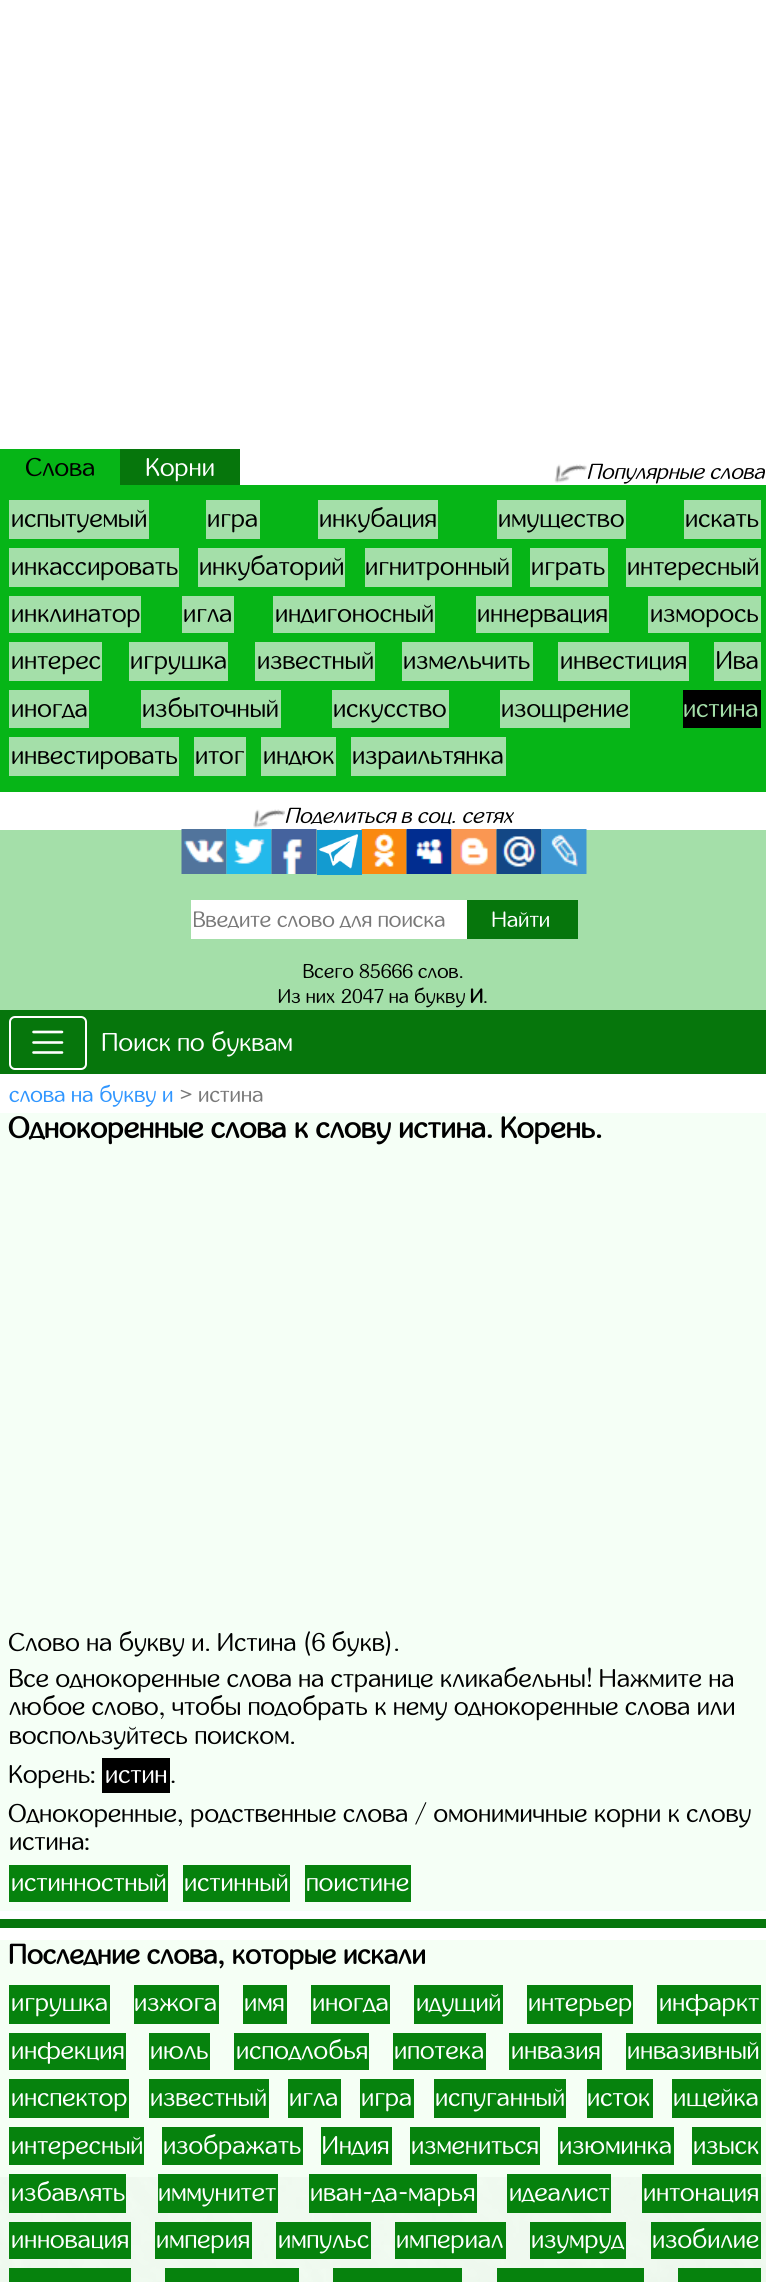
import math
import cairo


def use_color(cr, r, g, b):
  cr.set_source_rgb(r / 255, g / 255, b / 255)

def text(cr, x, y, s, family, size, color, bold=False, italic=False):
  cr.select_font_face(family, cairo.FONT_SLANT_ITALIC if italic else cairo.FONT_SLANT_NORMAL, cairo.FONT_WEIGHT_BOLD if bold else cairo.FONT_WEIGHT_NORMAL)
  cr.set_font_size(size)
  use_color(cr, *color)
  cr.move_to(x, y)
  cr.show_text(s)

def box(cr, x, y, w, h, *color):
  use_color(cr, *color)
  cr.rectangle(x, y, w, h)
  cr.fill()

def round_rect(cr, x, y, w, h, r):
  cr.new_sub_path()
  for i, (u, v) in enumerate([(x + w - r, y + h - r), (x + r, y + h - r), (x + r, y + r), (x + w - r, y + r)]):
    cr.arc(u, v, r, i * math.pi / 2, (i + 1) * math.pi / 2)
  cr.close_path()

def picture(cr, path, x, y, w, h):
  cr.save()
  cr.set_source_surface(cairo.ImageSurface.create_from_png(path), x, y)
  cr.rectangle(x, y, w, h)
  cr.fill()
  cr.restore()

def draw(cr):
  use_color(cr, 255, 255, 255)
  cr.paint()
  picture(cr, "img_01.png", 0, 2177, 766, 105)
  box(cr, 120, 449, 120, 36, 6, 118, 12)
  box(cr, 0, 449, 120, 36, 6, 181, 23)
  picture(cr, "img_02.png", 554, 464, 33, 19)
  box(cr, 0, 485, 766, 307, 6, 181, 23)
  box(cr, 9, 500, 140, 39, 164, 223, 169)
  box(cr, 206, 500, 54, 39, 164, 223, 169)
  box(cr, 318, 500, 120, 39, 164, 223, 169)
  box(cr, 497, 500, 129, 39, 164, 223, 169)
  box(cr, 684, 500, 77, 39, 164, 223, 169)
  box(cr, 9, 548, 170, 39, 164, 223, 169)
  box(cr, 198, 548, 147, 39, 164, 223, 169)
  box(cr, 365, 548, 147, 39, 164, 223, 169)
  box(cr, 530, 548, 78, 39, 164, 223, 169)
  box(cr, 626, 548, 135, 39, 164, 223, 169)
  box(cr, 9, 596, 132, 37, 164, 223, 169)
  box(cr, 182, 596, 52, 37, 164, 223, 169)
  box(cr, 273, 596, 162, 37, 164, 223, 169)
  box(cr, 476, 596, 133, 37, 164, 223, 169)
  box(cr, 648, 596, 113, 37, 164, 223, 169)
  box(cr, 9, 642, 93, 39, 164, 223, 169)
  box(cr, 129, 642, 99, 39, 164, 223, 169)
  box(cr, 255, 642, 120, 39, 164, 223, 169)
  box(cr, 402, 642, 131, 39, 164, 223, 169)
  box(cr, 558, 642, 131, 39, 164, 223, 169)
  box(cr, 714, 642, 47, 39, 164, 223, 169)
  box(cr, 9, 690, 80, 38, 164, 223, 169)
  box(cr, 141, 690, 140, 38, 164, 223, 169)
  box(cr, 332, 690, 117, 38, 164, 223, 169)
  box(cr, 500, 690, 130, 38, 164, 223, 169)
  box(cr, 683, 690, 78, 38, 0, 0, 0)
  box(cr, 9, 737, 170, 39, 164, 223, 169)
  box(cr, 194, 737, 52, 39, 164, 223, 169)
  box(cr, 261, 737, 75, 39, 164, 223, 169)
  box(cr, 351, 737, 155, 39, 164, 223, 169)
  picture(cr, "img_03.png", 253, 809, 32, 19)
  box(cr, 0, 830, 766, 180, 164, 223, 169)
  picture(cr, "img_04.png", 181, 829, 46, 45)
  picture(cr, "img_05.png", 226, 829, 46, 45)
  picture(cr, "img_06.png", 271, 829, 46, 45)
  picture(cr, "img_08.png", 361, 829, 46, 45)
  box(cr, 317, 830, 45, 45, 19, 155, 208)
  picture(cr, "img_07.png", 319, 829, 39, 40)
  picture(cr, "img_09.png", 406, 829, 46, 45)
  picture(cr, "img_10.png", 451, 829, 46, 45)
  picture(cr, "img_11.png", 496, 829, 46, 45)
  picture(cr, "img_12.png", 541, 829, 46, 45)
  box(cr, 191, 900, 276, 39, 255, 255, 255)
  box(cr, 467, 900, 111, 39, 6, 118, 12)
  box(cr, 0, 1010, 766, 64, 6, 118, 12)
  round_rect(cr, 10, 1017, 76, 52, 5)
  use_color(cr, 255, 255, 255)
  cr.stroke()
  cr.new_path()
  cr.move_to(33.5, 1032)
  cr.line_to(62, 1032)
  cr.move_to(33.5, 1042.5)
  cr.line_to(62, 1042.5)
  cr.move_to(33.5, 1052.5)
  cr.line_to(62, 1052.5)
  cr.set_line_width(2.6)
  cr.set_line_cap(cairo.LINE_CAP_ROUND)
  cr.stroke()
  box(cr, 0, 1113, 766, 798, 245, 255, 246)
  box(cr, 102, 1758, 68, 35, 0, 0, 0)
  box(cr, 9, 1865, 159, 37, 6, 130, 13)
  box(cr, 183, 1865, 107, 37, 6, 130, 13)
  box(cr, 305, 1865, 106, 37, 6, 130, 13)
  box(cr, 0, 1919, 766, 9, 6, 118, 12)
  cr.set_source_rgba(0.933, 1, 0.937, 0.6)
  cr.rectangle(0, 1940, 766, 342)
  cr.fill()
  box(cr, 9, 1985, 101, 39, 6, 130, 13)
  box(cr, 134, 1985, 85, 39, 6, 130, 13)
  box(cr, 243, 1985, 44, 39, 6, 130, 13)
  box(cr, 311, 1985, 79, 39, 6, 130, 13)
  box(cr, 414, 1985, 89, 39, 6, 130, 13)
  box(cr, 527, 1985, 106, 39, 6, 130, 13)
  box(cr, 657, 1985, 104, 39, 6, 130, 13)
  box(cr, 9, 2033, 117, 37, 6, 130, 13)
  box(cr, 149, 2033, 61, 37, 6, 130, 13)
  box(cr, 234, 2033, 135, 37, 6, 130, 13)
  box(cr, 393, 2033, 93, 37, 6, 130, 13)
  box(cr, 509, 2033, 93, 37, 6, 130, 13)
  box(cr, 626, 2033, 135, 37, 6, 130, 13)
  box(cr, 9, 2079, 120, 39, 6, 130, 13)
  box(cr, 149, 2079, 120, 39, 6, 130, 13)
  box(cr, 288, 2079, 53, 39, 6, 130, 13)
  box(cr, 360, 2079, 54, 39, 6, 130, 13)
  box(cr, 434, 2079, 132, 39, 6, 130, 13)
  box(cr, 587, 2079, 66, 39, 6, 130, 13)
  box(cr, 672, 2079, 89, 39, 6, 130, 13)
  box(cr, 9, 2127, 135, 38, 6, 130, 13)
  box(cr, 162, 2127, 141, 38, 6, 130, 13)
  box(cr, 321, 2127, 71, 38, 6, 130, 13)
  box(cr, 410, 2127, 130, 38, 6, 130, 13)
  box(cr, 558, 2127, 116, 38, 6, 130, 13)
  box(cr, 692, 2127, 69, 38, 6, 130, 13)
  box(cr, 9, 2174, 117, 39, 6, 130, 13)
  box(cr, 158, 2174, 120, 39, 6, 130, 13)
  box(cr, 309, 2174, 168, 39, 6, 130, 13)
  box(cr, 507, 2174, 104, 39, 6, 130, 13)
  box(cr, 642, 2174, 119, 39, 6, 130, 13)
  box(cr, 9, 2222, 122, 37, 6, 130, 13)
  box(cr, 155, 2222, 97, 37, 6, 130, 13)
  box(cr, 276, 2222, 95, 37, 6, 130, 13)
  box(cr, 395, 2222, 111, 37, 6, 130, 13)
  box(cr, 530, 2222, 96, 37, 6, 130, 13)
  box(cr, 651, 2222, 110, 37, 6, 130, 13)
  box(cr, 9, 2268, 122, 14, 6, 130, 13)
  box(cr, 165, 2268, 134, 14, 6, 130, 13)
  box(cr, 333, 2268, 129, 14, 6, 130, 13)
  box(cr, 497, 2268, 147, 14, 6, 130, 13)
  box(cr, 678, 2268, 83, 14, 6, 130, 13)
  text(cr, 26, 476, "Слова", "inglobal", 25.7, (0, 0, 0))
  text(cr, 146, 476, "Корни", "inglobal", 25.7, (255, 255, 255))
  text(cr, 587, 479, "Популярные слова", "inglobal", 21.75, (0, 0, 0), italic=True)
  text(cr, 11, 527, "испытуемый", "inglobal", 25.7, (0, 0, 0))
  text(cr, 207, 527, "игра", "inglobal", 25.7, (0, 0, 0))
  text(cr, 319, 527, "инкубация", "inglobal", 25.7, (0, 0, 0))
  text(cr, 498, 527, "имущество", "inglobal", 25.7, (0, 0, 0))
  text(cr, 685, 527, "искать", "inglobal", 25.7, (0, 0, 0))
  text(cr, 11, 575, "инкассировать", "inglobal", 25.7, (0, 0, 0))
  text(cr, 199, 575, "инкубаторий", "inglobal", 25.7, (0, 0, 0))
  text(cr, 365, 575, "игнитронный", "inglobal", 25.7, (0, 0, 0))
  text(cr, 531, 575, "играть", "inglobal", 25.7, (0, 0, 0))
  text(cr, 627, 575, "интересный", "inglobal", 25.7, (0, 0, 0))
  text(cr, 11, 622, "инклинатор", "inglobal", 25.7, (0, 0, 0))
  text(cr, 183, 622, "игла", "inglobal", 25.7, (0, 0, 0))
  text(cr, 275, 622, "индигоносный", "inglobal", 25.7, (0, 0, 0))
  text(cr, 477, 622, "иннервация", "inglobal", 25.7, (0, 0, 0))
  text(cr, 650, 622, "изморось", "inglobal", 25.7, (0, 0, 0))
  text(cr, 11, 669, "интерес", "inglobal", 25.7, (0, 0, 0))
  text(cr, 130, 669, "игрушка", "inglobal", 25.7, (0, 0, 0))
  text(cr, 257, 669, "известный", "inglobal", 25.7, (0, 0, 0))
  text(cr, 403, 669, "измельчить", "inglobal", 25.7, (0, 0, 0))
  text(cr, 560, 669, "инвестиция", "inglobal", 25.7, (0, 0, 0))
  text(cr, 716, 669, "Ива", "inglobal", 25.7, (0, 0, 0))
  text(cr, 11, 717, "иногда", "inglobal", 25.7, (0, 0, 0))
  text(cr, 142, 717, "избыточный", "inglobal", 25.7, (0, 0, 0))
  text(cr, 333, 717, "искусство", "inglobal", 25.7, (0, 0, 0))
  text(cr, 501, 717, "изощрение", "inglobal", 25.7, (0, 0, 0))
  text(cr, 683, 717, "истина", "inglobal", 25.7, (164, 223, 169))
  text(cr, 11, 764, "инвестировать", "inglobal", 25.7, (0, 0, 0))
  text(cr, 195, 764, "итог", "inglobal", 25.7, (0, 0, 0))
  text(cr, 263, 764, "индюк", "inglobal", 25.7, (0, 0, 0))
  text(cr, 352, 764, "израильтянка", "inglobal", 25.7, (0, 0, 0))
  text(cr, 285, 823, "Поделиться в соц. сетях", "inglobal", 21.75, (0, 0, 0), italic=True)
  cr.save()
  cr.rectangle(194, 908, 270, 24)
  cr.clip()
  text(cr, 193, 927, "Введите слово для поиска", "inglobal", 22.25, (121, 121, 121))
  cr.restore()
  text(cr, 492, 927, "Найти", "inglobal", 22.25, (255, 255, 255))
  text(cr, 303, 978, "Всего 85666 слов.", "inglobal", 20, (0, 0, 0))
  text(cr, 278, 1003, "Из них 2047 на букву", "inglobal", 20, (0, 0, 0))
  text(cr, 470, 1003, "И", "inglobal", 20, (0, 0, 0), bold=True)
  text(cr, 483, 1003, ".", "inglobal", 20, (0, 0, 0))
  text(cr, 102, 1051, "Поиск по буквам", "inglobal", 25.7, (255, 255, 255))
  text(cr, 9, 1102, "слова на букву и", "inglobal", 22.25, (48, 150, 255))
  text(cr, 180, 1102, ">", "inglobal", 22.25, (121, 121, 121))
  text(cr, 198, 1102, "истина", "inglobal", 22.25, (121, 121, 121))
  text(cr, 9, 1138, "Однокоренные слова к слову истина. Корень.", "inglobal", 29.75, (0, 0, 0), bold=True)
  text(cr, 9, 1651, "Слово на букву и. Истина (6 букв).", "inglobal", 25.7, (0, 0, 0))
  text(cr, 9, 1687, "Все однокоренные слова на странице кликабельны! Нажмите на", "inglobal", 25.7, (0, 0, 0))
  text(cr, 9, 1715, "любое слово, чтобы подобрать к нему однокоренные слова или", "inglobal", 25.7, (0, 0, 0))
  text(cr, 9, 1744, "воспользуйтесь поиском.", "inglobal", 25.7, (0, 0, 0))
  text(cr, 9, 1783, "Корень:", "inglobal", 25.7, (0, 0, 0))
  text(cr, 105, 1783, "истин", "inglobal", 25.7, (255, 255, 255))
  text(cr, 170, 1783, ".", "inglobal", 25.7, (0, 0, 0))
  text(cr, 9, 1822, "Однокоренные, родственные слова / омонимичные корни к слову", "inglobal", 25.7, (0, 0, 0))
  text(cr, 9, 1850, "истина:", "inglobal", 25.7, (0, 0, 0))
  text(cr, 11, 1891, "истинностный", "inglobal", 25.7, (255, 255, 255))
  text(cr, 184, 1891, "истинный", "inglobal", 25.7, (255, 255, 255))
  text(cr, 306, 1891, "поистине", "inglobal", 25.7, (255, 255, 255))
  text(cr, 9, 1964, "Последние слова, которые искали", "inglobal", 27.8, (0, 0, 0), bold=True)
  text(cr, 11, 2011, "игрушка", "inglobal", 25.7, (255, 255, 255))
  text(cr, 134, 2011, "изжога", "inglobal", 25.7, (255, 255, 255))
  text(cr, 244, 2011, "имя", "inglobal", 25.7, (255, 255, 255))
  text(cr, 312, 2011, "иногда", "inglobal", 25.7, (255, 255, 255))
  text(cr, 416, 2011, "идущий", "inglobal", 25.7, (255, 255, 255))
  text(cr, 528, 2011, "интерьер", "inglobal", 25.7, (255, 255, 255))
  text(cr, 659, 2011, "инфаркт", "inglobal", 25.7, (255, 255, 255))
  text(cr, 11, 2059, "инфекция", "inglobal", 25.7, (255, 255, 255))
  text(cr, 150, 2059, "июль", "inglobal", 25.7, (255, 255, 255))
  text(cr, 236, 2059, "исподлобья", "inglobal", 25.7, (255, 255, 255))
  text(cr, 394, 2059, "ипотека", "inglobal", 25.7, (255, 255, 255))
  text(cr, 511, 2059, "инвазия", "inglobal", 25.7, (255, 255, 255))
  text(cr, 627, 2059, "инвазивный", "inglobal", 25.7, (255, 255, 255))
  text(cr, 11, 2106, "инспектор", "inglobal", 25.7, (255, 255, 255))
  text(cr, 150, 2106, "известный", "inglobal", 25.7, (255, 255, 255))
  text(cr, 289, 2106, "игла", "inglobal", 25.7, (255, 255, 255))
  text(cr, 361, 2106, "игра", "inglobal", 25.7, (255, 255, 255))
  text(cr, 435, 2106, "испуганный", "inglobal", 25.7, (255, 255, 255))
  text(cr, 587, 2106, "исток", "inglobal", 25.7, (255, 255, 255))
  text(cr, 673, 2106, "ищейка", "inglobal", 25.7, (255, 255, 255))
  text(cr, 11, 2154, "интересный", "inglobal", 25.7, (255, 255, 255))
  text(cr, 163, 2154, "изображать", "inglobal", 25.7, (255, 255, 255))
  text(cr, 322, 2154, "Индия", "inglobal", 25.7, (255, 255, 255))
  text(cr, 411, 2154, "измениться", "inglobal", 25.7, (255, 255, 255))
  text(cr, 559, 2154, "изюминка", "inglobal", 25.7, (255, 255, 255))
  text(cr, 693, 2154, "изыск", "inglobal", 25.7, (255, 255, 255))
  text(cr, 11, 2201, "избавлять", "inglobal", 25.7, (255, 255, 255))
  text(cr, 158, 2201, "иммунитет", "inglobal", 25.7, (255, 255, 255))
  text(cr, 310, 2201, "иван-да-марья", "inglobal", 25.7, (255, 255, 255))
  text(cr, 509, 2201, "идеалист", "inglobal", 25.7, (255, 255, 255))
  text(cr, 643, 2201, "интонация", "inglobal", 25.7, (255, 255, 255))
  text(cr, 11, 2248, "инновация", "inglobal", 25.7, (255, 255, 255))
  text(cr, 156, 2248, "империя", "inglobal", 25.7, (255, 255, 255))
  text(cr, 278, 2248, "импульс", "inglobal", 25.7, (255, 255, 255))
  text(cr, 396, 2248, "империал", "inglobal", 25.7, (255, 255, 255))
  text(cr, 531, 2248, "изумруд", "inglobal", 25.7, (255, 255, 255))
  text(cr, 652, 2248, "изобилие", "inglobal", 25.7, (255, 255, 255))


surface = cairo.ImageSurface(cairo.FORMAT_RGB24, 766, 2282)
cr = cairo.Context(surface)
options = cairo.FontOptions()
options.set_hint_metrics(cairo.HINT_METRICS_OFF)
options.set_hint_style(cairo.HINT_STYLE_NONE)
cr.set_font_options(options)
cr.set_miter_limit(4)
draw(cr)
surface.write_to_png("out.png")
